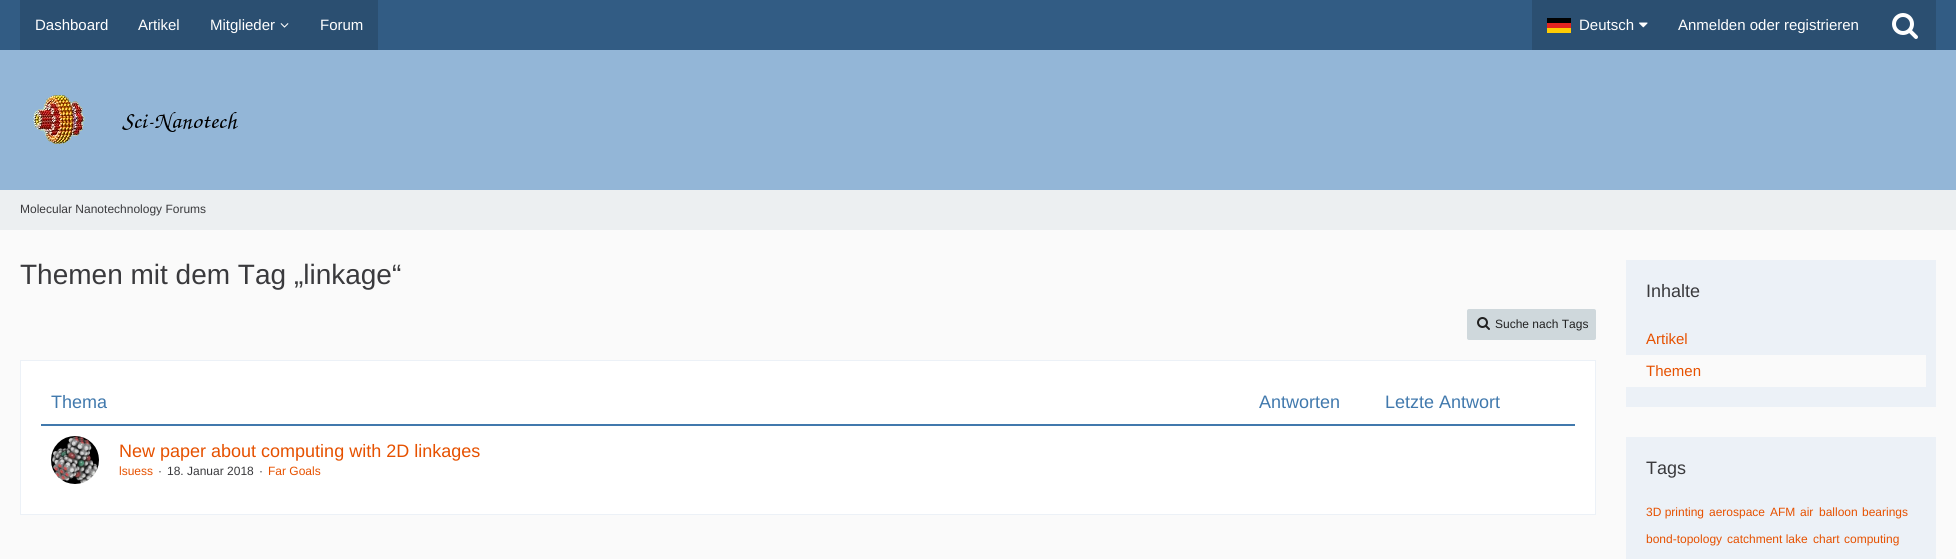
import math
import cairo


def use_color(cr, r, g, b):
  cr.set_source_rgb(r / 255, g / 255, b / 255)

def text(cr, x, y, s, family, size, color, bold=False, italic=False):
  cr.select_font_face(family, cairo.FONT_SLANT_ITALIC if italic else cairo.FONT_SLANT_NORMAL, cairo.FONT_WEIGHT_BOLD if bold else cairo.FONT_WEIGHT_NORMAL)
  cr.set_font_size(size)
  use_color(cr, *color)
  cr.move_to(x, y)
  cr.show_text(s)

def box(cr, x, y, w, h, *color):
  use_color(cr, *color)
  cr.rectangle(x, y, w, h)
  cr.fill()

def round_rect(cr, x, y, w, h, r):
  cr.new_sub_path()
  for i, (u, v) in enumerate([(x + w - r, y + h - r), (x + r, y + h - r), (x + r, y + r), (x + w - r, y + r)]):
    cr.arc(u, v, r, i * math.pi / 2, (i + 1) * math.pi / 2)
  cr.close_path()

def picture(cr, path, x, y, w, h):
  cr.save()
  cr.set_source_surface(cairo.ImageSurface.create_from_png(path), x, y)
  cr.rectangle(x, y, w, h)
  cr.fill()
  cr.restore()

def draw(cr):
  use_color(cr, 250, 250, 250)
  cr.paint()
  box(cr, 0, 50, 1956, 140, 147, 182, 215)
  box(cr, 0, 0, 1956, 50, 50, 92, 132)
  box(cr, 20, 0, 358, 50, 43, 79, 113)
  picture(cr, "img_01.png", 280, 23, 9, 5)
  box(cr, 1532, 0, 404, 50, 43, 79, 113)
  box(cr, 1547, 18, 24, 5, 1, 2, 2)
  box(cr, 1547, 28, 24, 5, 255, 204, 4)
  box(cr, 1547, 23, 24, 5, 229, 36, 32)
  picture(cr, "img_02.png", 1639, 22, 9, 6)
  picture(cr, "img_03.png", 1892, 13, 26, 26)
  picture(cr, "img_04.png", 33, 95, 205, 49)
  box(cr, 0, 190, 1956, 40, 236, 239, 241)
  use_color(cr, 207, 216, 220)
  round_rect(cr, 1467, 309, 129, 31, 2)
  cr.fill()
  picture(cr, "img_05.png", 1477, 317, 13, 13)
  use_color(cr, 255, 255, 255)
  cr.rectangle(20.5, 360.5, 1575, 154)
  cr.fill_preserve()
  use_color(cr, 236, 241, 247)
  cr.set_line_width(1)
  cr.stroke()
  box(cr, 41, 424, 1534, 2, 65, 121, 173)
  picture(cr, "img_06.png", 51, 436, 48, 48)
  box(cr, 1626, 260, 310, 147, 236, 241, 247)
  box(cr, 1626, 355, 300, 32, 250, 250, 250)
  box(cr, 1626, 437, 310, 122, 236, 241, 247)
  text(cr, 35, 30, "Dashboard", "Liberation Sans", 15, (255, 255, 255))
  text(cr, 138, 30, "Artikel", "Liberation Sans", 15, (255, 255, 255))
  text(cr, 210, 30, "Mitglieder", "Liberation Sans", 15, (255, 255, 255))
  text(cr, 320, 30, "Forum", "Liberation Sans", 15, (255, 255, 255))
  text(cr, 1579, 30, "Deutsch", "Liberation Sans", 15, (255, 255, 255))
  text(cr, 1678, 30, "Anmelden oder registrieren", "Liberation Sans", 15, (255, 255, 255))
  text(cr, 20, 213, "Molecular Nanotechnology Forums", "Liberation Sans", 12, (58, 58, 61))
  text(cr, 20, 284, "Themen mit dem Tag „linkage“", "Liberation Sans", 28, (58, 58, 61))
  text(cr, 1495, 328, "Suche nach Tags", "Liberation Sans", 12, (33, 33, 33))
  text(cr, 51, 408, "Thema", "Liberation Sans", 18, (65, 121, 173))
  text(cr, 1259, 408, "Antworten", "Liberation Sans", 18, (65, 121, 173))
  text(cr, 1385, 408, "Letzte Antwort", "Liberation Sans", 18, (65, 121, 173))
  text(cr, 119, 457, "New paper about computing with 2D linkages", "Liberation Sans", 18, (230, 81, 0))
  text(cr, 119, 475, "lsuess", "Liberation Sans", 12, (230, 81, 0))
  text(cr, 158, 475, "·", "Liberation Sans", 12, (58, 58, 61))
  text(cr, 167, 475, "18. Januar 2018", "Liberation Sans", 12, (58, 58, 61))
  text(cr, 259, 475, "·", "Liberation Sans", 12, (58, 58, 61))
  text(cr, 268, 475, "Far Goals", "Liberation Sans", 12, (230, 81, 0))
  text(cr, 1646, 297, "Inhalte", "Liberation Sans", 18, (58, 58, 61))
  text(cr, 1646, 344, "Artikel", "Liberation Sans", 15, (230, 81, 0))
  text(cr, 1646, 376, "Themen", "Liberation Sans", 15, (230, 81, 0))
  text(cr, 1646, 474, "Tags", "Liberation Sans", 18, (58, 58, 61))
  text(cr, 1646, 516, "3D printing", "Liberation Sans", 12, (230, 81, 0))
  text(cr, 1709, 516, "aerospace", "Liberation Sans", 12, (230, 81, 0))
  text(cr, 1770, 516, "AFM", "Liberation Sans", 12, (230, 81, 0))
  text(cr, 1800, 516, "air", "Liberation Sans", 12, (230, 81, 0))
  text(cr, 1819, 516, "balloon", "Liberation Sans", 12, (230, 81, 0))
  text(cr, 1862, 516, "bearings", "Liberation Sans", 12, (230, 81, 0))
  text(cr, 1646, 543, "bond-topology", "Liberation Sans", 12, (230, 81, 0))
  text(cr, 1727, 543, "catchment lake", "Liberation Sans", 12, (230, 81, 0))
  text(cr, 1813, 543, "chart", "Liberation Sans", 12, (230, 81, 0))
  text(cr, 1844, 543, "computing", "Liberation Sans", 12, (230, 81, 0))


surface = cairo.ImageSurface(cairo.FORMAT_RGB24, 1956, 559)
cr = cairo.Context(surface)
options = cairo.FontOptions()
options.set_hint_metrics(cairo.HINT_METRICS_OFF)
options.set_hint_style(cairo.HINT_STYLE_NONE)
cr.set_font_options(options)
cr.set_miter_limit(4)
draw(cr)
surface.write_to_png("out.png")
